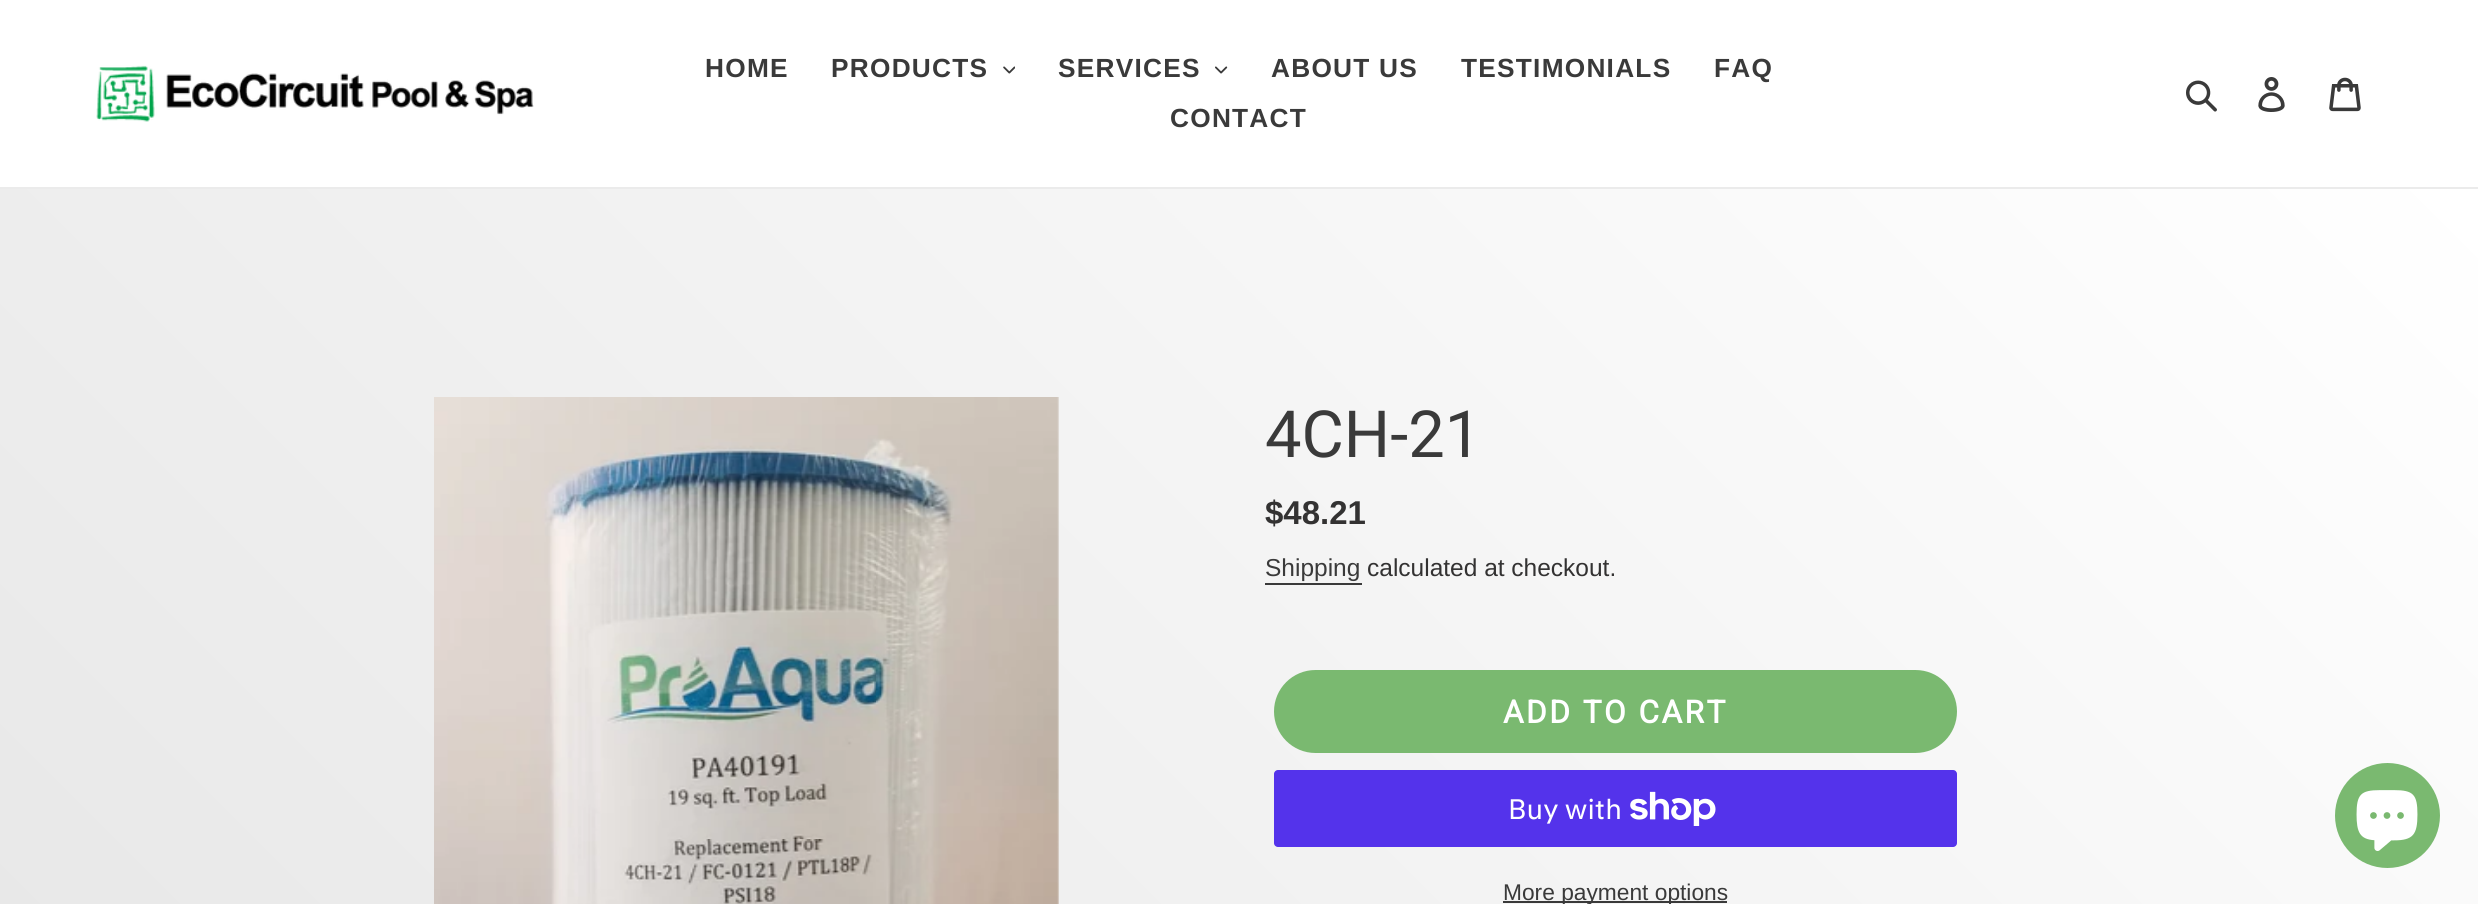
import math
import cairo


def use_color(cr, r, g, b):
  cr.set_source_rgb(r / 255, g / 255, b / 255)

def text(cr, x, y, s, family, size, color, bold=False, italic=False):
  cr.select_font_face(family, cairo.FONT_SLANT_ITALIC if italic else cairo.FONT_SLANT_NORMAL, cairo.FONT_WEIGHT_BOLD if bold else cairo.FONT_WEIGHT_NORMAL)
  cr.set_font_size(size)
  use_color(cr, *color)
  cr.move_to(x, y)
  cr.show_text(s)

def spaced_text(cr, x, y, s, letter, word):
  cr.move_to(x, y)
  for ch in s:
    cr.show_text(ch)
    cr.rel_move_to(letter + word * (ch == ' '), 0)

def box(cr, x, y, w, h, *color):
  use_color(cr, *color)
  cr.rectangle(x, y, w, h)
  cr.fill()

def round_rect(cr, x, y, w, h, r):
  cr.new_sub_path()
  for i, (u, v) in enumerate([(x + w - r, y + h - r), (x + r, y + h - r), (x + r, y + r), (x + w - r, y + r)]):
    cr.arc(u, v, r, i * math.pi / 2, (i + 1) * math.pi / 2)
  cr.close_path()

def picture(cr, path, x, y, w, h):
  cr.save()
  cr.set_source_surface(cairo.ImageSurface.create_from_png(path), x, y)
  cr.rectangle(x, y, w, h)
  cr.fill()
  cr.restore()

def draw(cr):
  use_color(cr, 255, 255, 255)
  cr.paint()
  box(cr, 0, 187, 2478, 2, 235, 235, 235)
  picture(cr, "img_01.png", 96, 65, 438, 57)
  picture(cr, "img_02.png", 1003, 66, 12, 8)
  picture(cr, "img_03.png", 1215, 66, 13, 8)
  picture(cr, "img_04.png", 2186, 80, 31, 32)
  picture(cr, "img_05.png", 2258, 77, 27, 35)
  picture(cr, "img_06.png", 2329, 77, 32, 35)
  gradient = cairo.LinearGradient(185, 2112, 2293, 3.9)
  gradient.add_color_stop_rgba(0, 0.882, 0.882, 0.882, 1)
  gradient.add_color_stop_rgba(1, 1, 1, 1, 1)
  cr.set_source(gradient)
  cr.rectangle(0, 189, 2478, 715)
  cr.fill()
  picture(cr, "img_07.png", 434, 397, 625, 507)
  box(cr, 1265, 583, 97, 2, 58, 58, 58)
  use_color(cr, 122, 185, 112)
  round_rect(cr, 1274, 670, 683, 83, 41.5)
  cr.fill()
  use_color(cr, 84, 51, 235)
  round_rect(cr, 1274, 770, 683, 77, 4)
  cr.fill()
  picture(cr, "img_08.png", 1630, 791, 86, 35)
  box(cr, 1503, 901, 224, 2, 58, 58, 58)
  use_color(cr, 122, 185, 112)
  cr.arc(2387.5, 815.5, 52.5, 0, 2 * math.pi)
  cr.fill()
  picture(cr, "img_09.png", 2356, 790, 62, 61)
  cr.select_font_face("Liberation Sans", cairo.FONT_SLANT_NORMAL, cairo.FONT_WEIGHT_BOLD)
  cr.set_font_size(26.25)
  use_color(cr, 58, 58, 58)
  spaced_text(cr, 705, 77, "HOME", 1.25, 0)
  spaced_text(cr, 831, 77, "PRODUCTS", 1.25, 0)
  spaced_text(cr, 1058, 77, "SERVICES", 1.25, 0)
  spaced_text(cr, 1271, 77, "ABOUT US", 1.25, 0)
  spaced_text(cr, 1461, 77, "TESTIMONIALS", 1.25, 0)
  spaced_text(cr, 1714, 77, "FAQ", 1.25, 0)
  spaced_text(cr, 1170, 127, "CONTACT", 1.25, 0)
  text(cr, 1265, 457, "4CH-21", "Roboto", 65, (58, 58, 58))
  text(cr, 1265, 524, "$48.21", "Liberation Sans", 33, (51, 50, 50), bold=True)
  text(cr, 1265, 576, "Shipping", "Liberation Sans", 24.5, (58, 58, 58))
  text(cr, 1367, 576, "calculated at checkout.", "Liberation Sans", 24.5, (51, 50, 50))
  cr.select_font_face("Roboto", cairo.FONT_SLANT_NORMAL, cairo.FONT_WEIGHT_BOLD)
  cr.set_font_size(31.5)
  use_color(cr, 255, 255, 255)
  spaced_text(cr, 1503, 723, "ADD TO CART", 2.5, 0)
  text(cr, 1508, 819, "Buy with", "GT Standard", 28, (255, 255, 255))
  text(cr, 1503, 900, "More payment options", "Liberation Sans", 22.75, (58, 58, 58))


surface = cairo.ImageSurface(cairo.FORMAT_RGB24, 2478, 904)
cr = cairo.Context(surface)
options = cairo.FontOptions()
options.set_hint_metrics(cairo.HINT_METRICS_OFF)
options.set_hint_style(cairo.HINT_STYLE_NONE)
cr.set_font_options(options)
cr.set_miter_limit(4)
draw(cr)
surface.write_to_png("out.png")
